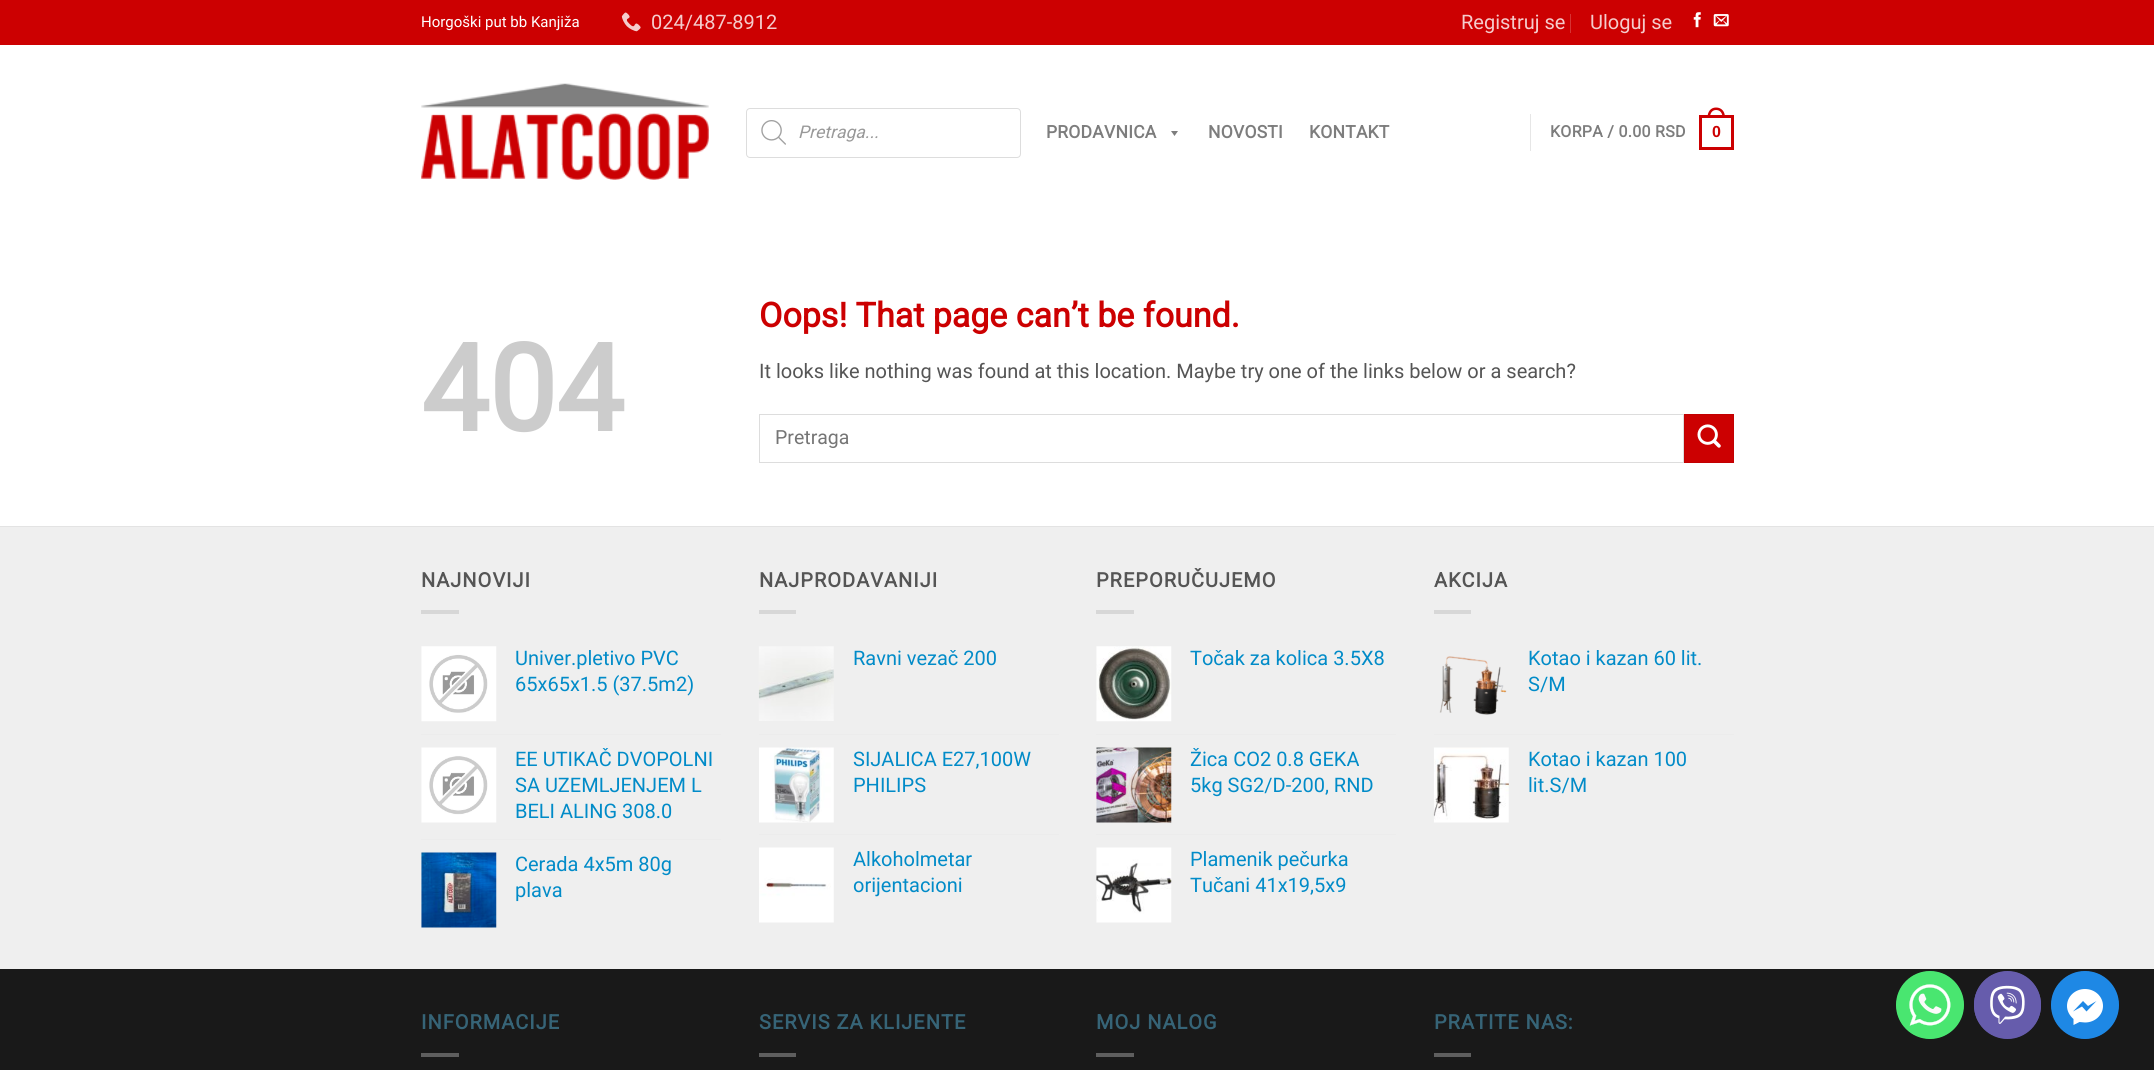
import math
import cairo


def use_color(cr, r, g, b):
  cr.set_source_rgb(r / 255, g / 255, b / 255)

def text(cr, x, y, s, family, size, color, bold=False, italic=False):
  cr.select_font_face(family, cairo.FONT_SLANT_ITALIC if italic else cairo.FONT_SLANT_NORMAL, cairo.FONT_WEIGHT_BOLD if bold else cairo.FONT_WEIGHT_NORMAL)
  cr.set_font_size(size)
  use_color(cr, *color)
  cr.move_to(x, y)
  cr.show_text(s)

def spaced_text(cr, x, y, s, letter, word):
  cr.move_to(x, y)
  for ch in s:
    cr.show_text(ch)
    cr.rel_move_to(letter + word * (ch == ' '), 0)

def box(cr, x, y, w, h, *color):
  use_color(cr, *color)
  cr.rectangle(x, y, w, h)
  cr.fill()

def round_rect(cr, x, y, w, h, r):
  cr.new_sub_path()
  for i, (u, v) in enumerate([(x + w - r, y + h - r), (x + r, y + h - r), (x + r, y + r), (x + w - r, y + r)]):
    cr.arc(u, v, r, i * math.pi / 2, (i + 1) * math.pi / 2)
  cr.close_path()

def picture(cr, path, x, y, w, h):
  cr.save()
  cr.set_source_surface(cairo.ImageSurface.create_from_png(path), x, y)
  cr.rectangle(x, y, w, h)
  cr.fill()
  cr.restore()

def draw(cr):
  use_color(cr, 255, 255, 255)
  cr.paint()
  box(cr, 0, 0, 2154, 45, 204, 0, 1)
  picture(cr, "img_01.png", 621, 12, 20, 20)
  box(cr, 1570, 14, 1, 19, 214, 51, 52)
  picture(cr, "img_02.png", 1693, 12, 8, 16)
  picture(cr, "img_03.png", 1713, 14, 16, 13)
  picture(cr, "img_04.png", 421, 83, 288, 97)
  round_rect(cr, 746.5, 108.5, 274, 49, 3.5)
  use_color(cr, 221, 221, 221)
  cr.set_line_width(1)
  cr.stroke()
  picture(cr, "img_05.png", 761, 120, 25, 25)
  use_color(cr, 125, 125, 125)
  cr.new_path()
  cr.move_to(1178, 131)
  cr.line_to(1174.5, 136)
  cr.line_to(1171, 131)
  cr.close_path()
  cr.fill()
  box(cr, 1530, 114, 1, 37, 230, 230, 230)
  cr.rectangle(1700.5, 116.5, 32, 32)
  use_color(cr, 204, 0, 1)
  cr.set_line_width(3)
  cr.stroke()
  cr.set_fill_rule(cairo.FILL_RULE_EVEN_ODD)
  cr.new_path()
  cr.move_to(1716, 107.5)
  cr.curve_to(1722, 107.5, 1725, 112, 1725, 117.5)
  cr.line_to(1707.5, 117.5)
  cr.curve_to(1707.5, 112, 1710.5, 107.5, 1716, 107.5)
  cr.close_path()
  cr.move_to(1716, 110)
  cr.curve_to(1720.5, 110, 1722.5, 113.5, 1722.5, 117.5)
  cr.line_to(1710, 117.5)
  cr.curve_to(1710, 113.5, 1712, 110, 1716, 110)
  cr.close_path()
  cr.fill()
  cr.rectangle(759.5, 414.5, 924, 48)
  use_color(cr, 221, 221, 221)
  cr.set_line_width(1)
  cr.stroke()
  use_color(cr, 204, 0, 1)
  cr.rectangle(1684.5, 414.5, 49, 48)
  cr.fill_preserve()
  use_color(cr, 194, 0, 1)
  cr.stroke()
  picture(cr, "img_06.png", 1697, 424, 24, 24)
  box(cr, 0, 527, 2154, 442, 239, 239, 239)
  box(cr, 0, 526, 2154, 1, 227, 227, 227)
  box(cr, 421, 610, 38, 4, 215, 215, 215)
  picture(cr, "img_07.png", 421, 646, 76, 76)
  box(cr, 421, 734, 300, 1, 236, 236, 236)
  picture(cr, "img_08.png", 421, 747, 76, 76)
  box(cr, 421, 839, 300, 1, 236, 236, 236)
  picture(cr, "img_09.png", 421, 852, 76, 76)
  box(cr, 759, 610, 37, 4, 215, 215, 215)
  picture(cr, "img_10.png", 758, 646, 76, 75)
  box(cr, 759, 734, 300, 1, 236, 236, 236)
  picture(cr, "img_11.png", 759, 747, 75, 76)
  box(cr, 759, 834, 300, 1, 236, 236, 236)
  picture(cr, "img_12.png", 759, 847, 75, 76)
  box(cr, 1096, 610, 38, 4, 215, 215, 215)
  picture(cr, "img_13.png", 1096, 646, 76, 76)
  box(cr, 1096, 734, 300, 1, 236, 236, 236)
  picture(cr, "img_14.png", 1096, 747, 76, 76)
  box(cr, 1096, 834, 300, 1, 236, 236, 236)
  picture(cr, "img_15.png", 1096, 847, 76, 76)
  box(cr, 1434, 610, 37, 4, 215, 215, 215)
  picture(cr, "img_16.png", 1439, 656, 68, 59)
  box(cr, 1434, 734, 300, 1, 236, 236, 236)
  picture(cr, "img_17.png", 1433, 747, 76, 76)
  box(cr, 0, 969, 2154, 101, 25, 25, 25)
  box(cr, 421, 1053, 38, 4, 94, 94, 94)
  box(cr, 759, 1053, 37, 4, 94, 94, 94)
  box(cr, 1096, 1053, 38, 4, 94, 94, 94)
  box(cr, 1434, 1053, 37, 4, 94, 94, 94)
  use_color(cr, 73, 230, 112)
  cr.arc(1930, 1005, 34, 0, 2 * math.pi)
  cr.fill()
  picture(cr, "img_18.png", 1896, 971, 68, 68)
  use_color(cr, 102, 92, 172)
  round_rect(cr, 1974, 971, 67, 68, 33.5)
  cr.fill()
  picture(cr, "img_19.png", 1974, 971, 67, 68)
  use_color(cr, 30, 136, 229)
  cr.arc(2085, 1005, 34, 0, 2 * math.pi)
  cr.fill()
  cr.arc(2085, 1005, 33.5, 0, 2 * math.pi)
  cr.fill()
  use_color(cr, 255, 255, 255)
  cr.new_path()
  cr.move_to(2067, 1006)
  cr.curve_to(2067, 996.5, 2075, 989, 2085, 989)
  cr.curve_to(2095, 989, 2103, 996.5, 2103, 1006)
  cr.curve_to(2103, 1015, 2095, 1022.5, 2085, 1022.5)
  cr.curve_to(2083, 1022.5, 2081.5, 1022, 2079.5, 1022)
  cr.line_to(2073.5, 1025)
  cr.line_to(2073.5, 1019)
  cr.curve_to(2069.5, 1015.5, 2067, 1011, 2067, 1006)
  cr.close_path()
  cr.move_to(2082, 1006.5)
  cr.line_to(2086.5, 1011.5)
  cr.line_to(2096.5, 1001)
  cr.line_to(2088, 1006)
  cr.line_to(2083, 1001)
  cr.line_to(2073, 1011.5)
  cr.close_path()
  cr.fill()
  text(cr, 421, 27, "Horgoški put bb Kanjiža", "Roboto", 15, (255, 255, 255))
  text(cr, 651, 29, "024/487-8912", "Roboto", 20, (245, 204, 204))
  text(cr, 1461, 29, "Registruj se", "Roboto", 20, (245, 204, 204))
  text(cr, 1590, 29, "Uloguj se", "Roboto", 20, (245, 204, 204))
  text(cr, 798, 138, "Pretraga...", "Roboto", 17.5, (153, 153, 153), italic=True)
  cr.select_font_face("Roboto", cairo.FONT_SLANT_NORMAL, cairo.FONT_WEIGHT_BOLD)
  use_color(cr, 125, 125, 125)
  spaced_text(cr, 1046, 138, "PRODAVNICA", 0.25, 0)
  spaced_text(cr, 1208, 138, "NOVOSTI", 0.25, 0)
  spaced_text(cr, 1309, 138, "KONTAKT", 0.25, 0)
  cr.set_font_size(16)
  spaced_text(cr, 1550, 137, "KORPA / 0.00 RSD", 0.3, 0)
  cr.select_font_face("Liberation Sans", cairo.FONT_SLANT_NORMAL, cairo.FONT_WEIGHT_BOLD)
  use_color(cr, 204, 0, 1)
  spaced_text(cr, 1712, 137, "0", 0.3, 0)
  text(cr, 421, 431, "404", "Roboto", 120, (204, 204, 204), bold=True)
  text(cr, 759, 327, "Oops! That page can’t be found.", "Roboto", 34, (204, 0, 1), bold=True)
  text(cr, 759, 378, "It looks like nothing was found at this location. Maybe try one of the links below or a search?", "Roboto", 20, (85, 85, 85))
  text(cr, 775, 444, "Pretraga", "Roboto", 19.5, (117, 117, 117))
  cr.select_font_face("Roboto", cairo.FONT_SLANT_NORMAL, cairo.FONT_WEIGHT_BOLD)
  cr.set_font_size(20)
  use_color(cr, 85, 85, 85)
  spaced_text(cr, 421, 587, "NAJNOVIJI", 1, 0)
  text(cr, 515, 665, "Univer.pletivo PVC", "Roboto", 20, (1, 139, 200))
  text(cr, 515, 691, "65x65x1.5 (37.5m2)", "Roboto", 20, (1, 139, 200))
  cr.save()
  cr.set_fill_rule(cairo.FILL_RULE_WINDING)
  cr.rectangle(515, 748, 206, 78)
  cr.clip()
  text(cr, 515, 766, "EE UTIKAČ DVOPOLNI", "Roboto", 20, (1, 139, 200))
  cr.restore()
  text(cr, 515, 792, "SA UZEMLJENJEM L", "Roboto", 20, (1, 139, 200))
  text(cr, 515, 818, "BELI ALING 308.0", "Roboto", 20, (1, 139, 200))
  text(cr, 515, 871, "Cerada 4x5m 80g", "Roboto", 20, (1, 139, 200))
  text(cr, 515, 897, "plava", "Roboto", 20, (1, 139, 200))
  cr.select_font_face("Roboto", cairo.FONT_SLANT_NORMAL, cairo.FONT_WEIGHT_BOLD)
  use_color(cr, 85, 85, 85)
  spaced_text(cr, 759, 587, "NAJPRODAVANIJI", 1, 0)
  text(cr, 853, 665, "Ravni vezač 200", "Roboto", 20, (1, 139, 200))
  text(cr, 853, 766, "SIJALICA E27,100W", "Roboto", 20, (1, 139, 200))
  text(cr, 853, 792, "PHILIPS", "Roboto", 20, (1, 139, 200))
  text(cr, 853, 866, "Alkoholmetar", "Roboto", 20, (1, 139, 200))
  text(cr, 853, 892, "orijentacioni", "Roboto", 20, (1, 139, 200))
  cr.select_font_face("Roboto", cairo.FONT_SLANT_NORMAL, cairo.FONT_WEIGHT_BOLD)
  use_color(cr, 85, 85, 85)
  spaced_text(cr, 1096, 587, "PREPORUČUJEMO", 1, 0)
  text(cr, 1190, 665, "Točak za kolica 3.5X8", "Roboto", 20, (1, 139, 200))
  text(cr, 1190, 766, "Žica CO2 0.8 GEKA", "Roboto", 20, (1, 139, 200))
  text(cr, 1190, 792, "5kg SG2/D-200, RND", "Roboto", 20, (1, 139, 200))
  text(cr, 1190, 866, "Plamenik pečurka", "Roboto", 20, (1, 139, 200))
  text(cr, 1190, 892, "Tučani 41x19,5x9", "Roboto", 20, (1, 139, 200))
  cr.select_font_face("Roboto", cairo.FONT_SLANT_NORMAL, cairo.FONT_WEIGHT_BOLD)
  use_color(cr, 85, 85, 85)
  spaced_text(cr, 1434, 587, "AKCIJA", 1, 0)
  text(cr, 1528, 665, "Kotao i kazan 60 lit.", "Roboto", 20, (1, 139, 200))
  text(cr, 1528, 691, "S/M", "Roboto", 20, (1, 139, 200))
  text(cr, 1528, 766, "Kotao i kazan 100", "Roboto", 20, (1, 139, 200))
  text(cr, 1528, 792, "lit.S/M", "Roboto", 20, (1, 139, 200))
  cr.select_font_face("Roboto", cairo.FONT_SLANT_NORMAL, cairo.FONT_WEIGHT_BOLD)
  use_color(cr, 54, 100, 119)
  spaced_text(cr, 421, 1029, "INFORMACIJE", 1, 0)
  spaced_text(cr, 759, 1029, "SERVIS ZA KLIJENTE", 1, 0)
  spaced_text(cr, 1096, 1029, "MOJ NALOG", 1, 0)
  spaced_text(cr, 1434, 1029, "PRATITE NAS:", 1, 0)


surface = cairo.ImageSurface(cairo.FORMAT_RGB24, 2154, 1070)
cr = cairo.Context(surface)
options = cairo.FontOptions()
options.set_hint_metrics(cairo.HINT_METRICS_OFF)
options.set_hint_style(cairo.HINT_STYLE_NONE)
cr.set_font_options(options)
cr.set_miter_limit(4)
draw(cr)
surface.write_to_png("out.png")
